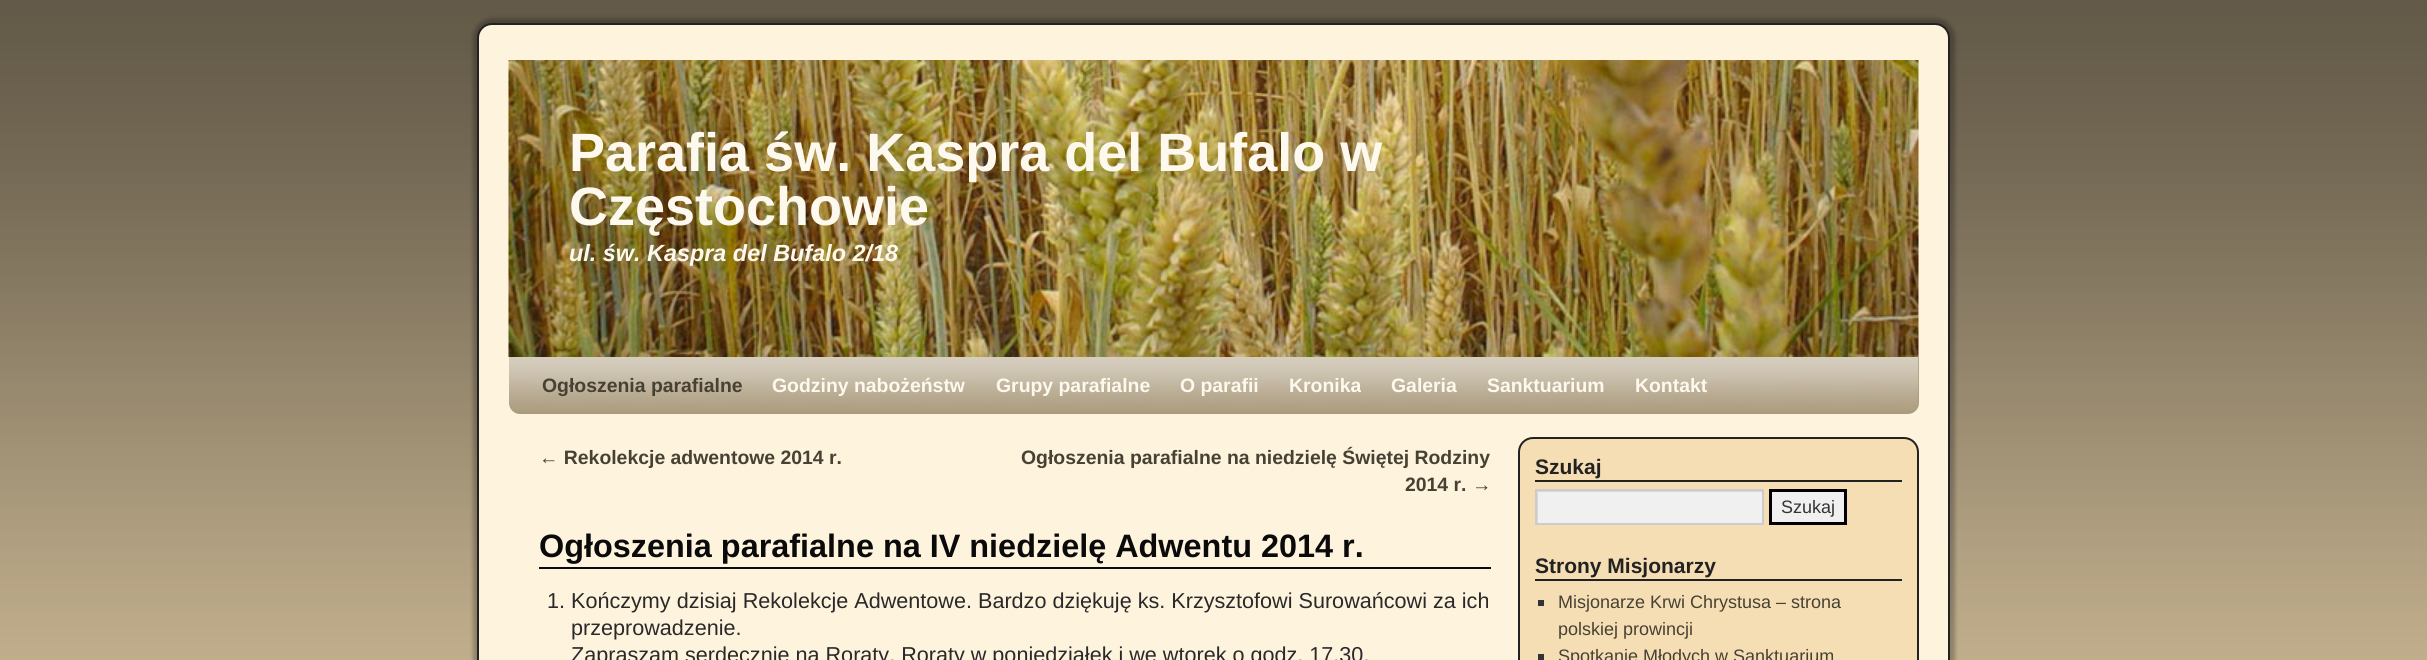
import math
import cairo


def use_color(cr, r, g, b):
  cr.set_source_rgb(r / 255, g / 255, b / 255)

def text(cr, x, y, s, family, size, color, bold=False, italic=False):
  cr.select_font_face(family, cairo.FONT_SLANT_ITALIC if italic else cairo.FONT_SLANT_NORMAL, cairo.FONT_WEIGHT_BOLD if bold else cairo.FONT_WEIGHT_NORMAL)
  cr.set_font_size(size)
  use_color(cr, *color)
  cr.move_to(x, y)
  cr.show_text(s)

def box(cr, x, y, w, h, *color):
  use_color(cr, *color)
  cr.rectangle(x, y, w, h)
  cr.fill()

def round_rect(cr, x, y, w, h, r):
  cr.new_sub_path()
  for i, (u, v) in enumerate([(x + w - r, y + h - r), (x + r, y + h - r), (x + r, y + r), (x + w - r, y + r)]):
    cr.arc(u, v, r, i * math.pi / 2, (i + 1) * math.pi / 2)
  cr.close_path()

def shadow(cr, x, y, w, h, r, blur, alpha):
  cr.push_group_with_content(cairo.CONTENT_ALPHA)
  cr.set_operator(cairo.OPERATOR_SOURCE)
  for i in range(15, -16, -2):
    e = blur * i / 6
    if min(w, h) + 2 * e > 0:
      cr.set_source_rgba(0, 0, 0, alpha * math.erfc((i - 1) / 8.5) / 2)
      round_rect(cr, x - e, y - e, w + 2 * e, h + 2 * e, max(0, min(r + e + blur * .6, min(w, h) / 2 + e)))
      cr.fill()
  cr.mask(cr.pop_group())

def picture(cr, path, x, y, w, h):
  cr.save()
  cr.set_source_surface(cairo.ImageSurface.create_from_png(path), x, y)
  cr.rectangle(x, y, w, h)
  cr.fill()
  cr.restore()

def draw(cr):
  use_color(cr, 199, 180, 145)
  cr.paint()
  picture(cr, "img_01.png", 0, 0, 2427, 660)
  use_color(cr, 0, 0, 0)
  shadow(cr, 473, 18, 1482, 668, 20, 2, 0.25)
  use_color(cr, 254, 243, 221)
  round_rect(cr, 478, 24, 1471, 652, 14)
  cr.fill_preserve()
  use_color(cr, 34, 34, 34)
  cr.stroke()
  picture(cr, "img_02.png", 508, 60, 1411, 297)
  use_color(cr, 171, 155, 125)
  cr.new_path()
  cr.move_to(509, 357)
  cr.line_to(1919, 357)
  cr.line_to(1919, 403)
  cr.curve_to(1919, 409, 1914, 414, 1908, 414)
  cr.line_to(520, 414)
  cr.curve_to(514, 414, 509, 409, 509, 403)
  cr.close_path()
  cr.fill()
  picture(cr, "img_03.png", 508, 357, 1411, 54)
  box(cr, 539, 567, 952, 2, 10, 10, 10)
  use_color(cr, 245, 222, 179)
  round_rect(cr, 1519, 438, 399, 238, 14)
  cr.fill_preserve()
  use_color(cr, 34, 34, 34)
  cr.stroke()
  box(cr, 1535, 480, 367, 2, 34, 34, 34)
  box(cr, 1538, 492, 224, 31, 240, 240, 240)
  cr.save()
  cr.rectangle(1536, 491, 227, 33)
  cr.clip()
  use_color(cr, 216, 216, 216)
  cr.set_fill_rule(cairo.FILL_RULE_EVEN_ODD)
  cr.new_path()
  cr.move_to(1534, 438)
  cr.line_to(1903, 438)
  cr.curve_to(1906, 438, 1909, 439, 1911, 441)
  cr.line_to(1911, 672)
  cr.line_to(1520, 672)
  cr.line_to(1520, 452)
  cr.curve_to(1520, 444, 1526, 438, 1534, 438)
  cr.close_path()
  cr.move_to(1538, 492)
  cr.line_to(1538, 525)
  cr.line_to(1764, 525)
  cr.line_to(1764, 492)
  cr.close_path()
  cr.fill()
  cr.restore()
  cr.rectangle(1536, 490, 227, 34)
  use_color(cr, 204, 204, 204)
  cr.stroke()
  use_color(cr, 240, 240, 240)
  cr.rectangle(1770.5, 490.5, 75, 33)
  cr.fill_preserve()
  use_color(cr, 0, 0, 0)
  cr.set_line_width(3)
  cr.stroke()
  box(cr, 1535, 579, 367, 2, 34, 34, 34)
  box(cr, 1538, 600, 6, 6, 51, 51, 51)
  box(cr, 1538, 654, 6, 6, 51, 51, 51)
  text(cr, 569, 171, "Parafia św. Kaspra del Bufalo w", "Liberation Sans", 54, (254, 249, 238), bold=True)
  text(cr, 569, 225, "Częstochowie", "Liberation Sans", 54, (254, 249, 238), bold=True)
  text(cr, 569, 261, "ul. św. Kaspra del Bufalo 2/18", "Liberation Sans", 23.4, (254, 249, 238), bold=True, italic=True)
  text(cr, 542, 392, "Ogłoszenia parafialne", "Liberation Sans", 19.4, (71, 65, 52), bold=True)
  text(cr, 772, 392, "Godziny nabożeństw", "Liberation Sans", 19.4, (254, 249, 238), bold=True)
  text(cr, 996, 392, "Grupy parafialne", "Liberation Sans", 19.4, (254, 249, 238), bold=True)
  text(cr, 1180, 392, "O parafii", "Liberation Sans", 19.4, (254, 249, 238), bold=True)
  text(cr, 1289, 392, "Kronika", "Liberation Sans", 19.4, (254, 249, 238), bold=True)
  text(cr, 1391, 392, "Galeria", "Liberation Sans", 19.4, (254, 249, 238), bold=True)
  text(cr, 1487, 392, "Sanktuarium", "Liberation Sans", 19.4, (254, 249, 238), bold=True)
  text(cr, 1635, 392, "Kontakt", "Liberation Sans", 19.4, (254, 249, 238), bold=True)
  text(cr, 539, 464, "← Rekolekcje adwentowe 2014 r.", "Liberation Sans", 19.4, (71, 65, 52), bold=True)
  text(cr, 1021, 464, "Ogłoszenia parafialne na niedzielę Świętej Rodziny", "Liberation Sans", 19.4, (71, 65, 52), bold=True)
  text(cr, 1405, 491, "2014 r. →", "Liberation Sans", 19.4, (71, 65, 52), bold=True)
  text(cr, 539, 557, "Ogłoszenia parafialne na IV niedzielę Adwentu 2014 r.", "Liberation Sans", 32.4, (10, 10, 10), bold=True)
  text(cr, 547, 608, "1. Kończymy dzisiaj Rekolekcje Adwentowe. Bardzo dziękuję ks. Krzysztofowi Surowańcowi za ich", "Liberation Sans", 21.6, (41, 41, 41))
  text(cr, 571, 635, "przeprowadzenie.", "Liberation Sans", 21.6, (41, 41, 41))
  text(cr, 571, 662, "Zapraszam serdecznie na Roraty. Roraty w poniedziałek i we wtorek o godz. 17.30.", "Liberation Sans", 21.6, (41, 41, 41))
  text(cr, 1535, 474, "Szukaj", "Liberation Sans", 21, (34, 34, 34), bold=True)
  text(cr, 1781, 513, "Szukaj", "Liberation Sans", 18, (51, 51, 51))
  text(cr, 1535, 573, "Strony Misjonarzy", "Liberation Sans", 21, (34, 34, 34), bold=True)
  text(cr, 1558, 608, "Misjonarze Krwi Chrystusa – strona", "Liberation Sans", 18, (71, 65, 52))
  text(cr, 1558, 635, "polskiej prowincji", "Liberation Sans", 18, (71, 65, 52))
  text(cr, 1558, 662, "Spotkanie Młodych w Sanktuarium", "Liberation Sans", 18, (71, 65, 52))


surface = cairo.ImageSurface(cairo.FORMAT_RGB24, 2427, 660)
cr = cairo.Context(surface)
options = cairo.FontOptions()
options.set_hint_metrics(cairo.HINT_METRICS_OFF)
options.set_hint_style(cairo.HINT_STYLE_NONE)
cr.set_font_options(options)
cr.set_miter_limit(4)
draw(cr)
surface.write_to_png("out.png")
